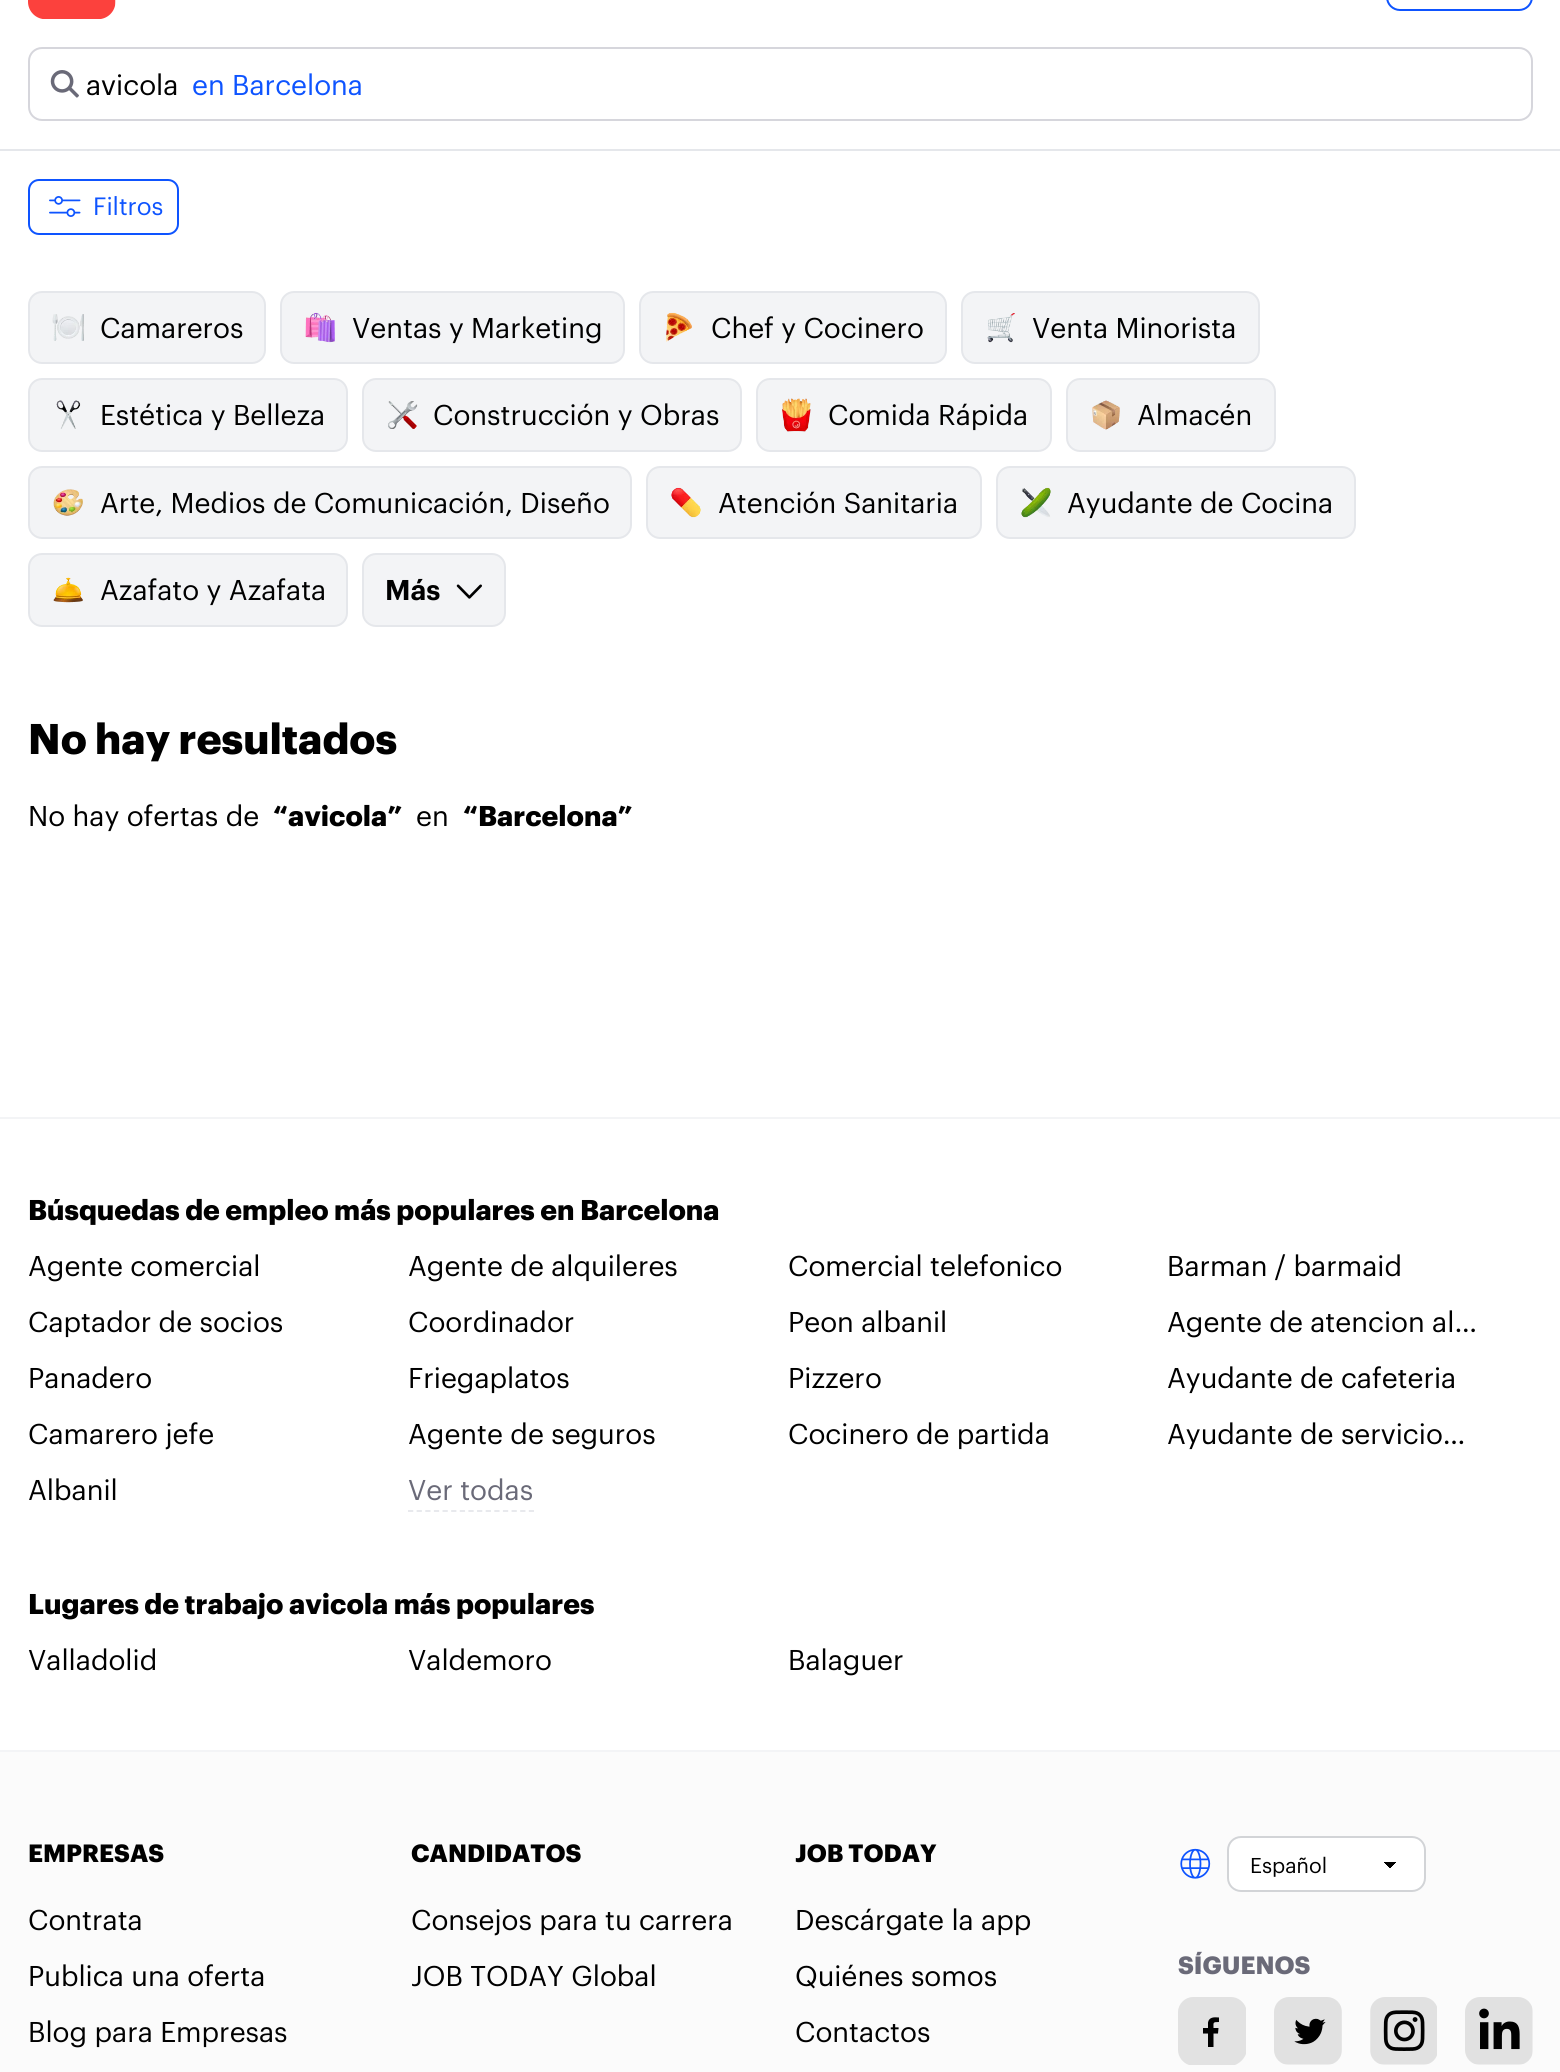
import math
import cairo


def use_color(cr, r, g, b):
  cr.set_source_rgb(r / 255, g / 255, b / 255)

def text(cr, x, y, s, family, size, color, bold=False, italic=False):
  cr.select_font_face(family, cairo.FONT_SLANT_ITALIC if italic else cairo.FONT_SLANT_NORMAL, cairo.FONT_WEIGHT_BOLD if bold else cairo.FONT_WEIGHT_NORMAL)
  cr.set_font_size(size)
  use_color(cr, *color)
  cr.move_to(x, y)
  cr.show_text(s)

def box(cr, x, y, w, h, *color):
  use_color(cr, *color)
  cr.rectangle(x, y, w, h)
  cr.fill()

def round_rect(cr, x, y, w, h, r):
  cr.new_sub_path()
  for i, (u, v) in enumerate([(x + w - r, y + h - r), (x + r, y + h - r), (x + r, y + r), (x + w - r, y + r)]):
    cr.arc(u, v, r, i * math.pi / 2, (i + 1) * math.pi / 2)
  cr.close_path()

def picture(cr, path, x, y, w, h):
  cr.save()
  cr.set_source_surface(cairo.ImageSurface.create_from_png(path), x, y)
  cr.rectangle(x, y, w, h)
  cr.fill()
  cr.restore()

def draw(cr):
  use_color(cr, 255, 255, 255)
  cr.paint()
  box(cr, 0, 149, 1560, 2, 229, 231, 235)
  picture(cr, "img_01.png", 28, 0, 88, 19)
  round_rect(cr, 1387, -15, 145, 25, 13)
  use_color(cr, 14, 84, 255)
  cr.stroke()
  round_rect(cr, 29, 48, 1503, 72, 13)
  use_color(cr, 214, 214, 220)
  cr.stroke()
  picture(cr, "img_02.png", 50, 70, 29, 28)
  round_rect(cr, 29, 180, 149, 54, 10)
  use_color(cr, 14, 84, 255)
  cr.stroke()
  picture(cr, "img_03.png", 49, 196, 32, 21)
  use_color(cr, 243, 244, 246)
  round_rect(cr, 29, 292, 236, 71, 13)
  cr.fill_preserve()
  use_color(cr, 229, 231, 235)
  cr.stroke()
  picture(cr, "img_04.png", 52, 314, 32, 27)
  use_color(cr, 243, 244, 246)
  round_rect(cr, 281, 292, 343, 71, 13)
  cr.fill_preserve()
  use_color(cr, 229, 231, 235)
  cr.stroke()
  picture(cr, "img_05.png", 305, 312, 30, 31)
  use_color(cr, 243, 244, 246)
  round_rect(cr, 640, 292, 306, 71, 13)
  cr.fill_preserve()
  use_color(cr, 229, 231, 235)
  cr.stroke()
  picture(cr, "img_06.png", 666, 312, 26, 30)
  use_color(cr, 243, 244, 246)
  round_rect(cr, 962, 292, 297, 71, 13)
  cr.fill_preserve()
  use_color(cr, 229, 231, 235)
  cr.stroke()
  picture(cr, "img_07.png", 987, 313, 28, 30)
  use_color(cr, 243, 244, 246)
  round_rect(cr, 29, 379, 318, 72, 13)
  cr.fill_preserve()
  use_color(cr, 229, 231, 235)
  cr.stroke()
  picture(cr, "img_08.png", 56, 400, 25, 29)
  use_color(cr, 243, 244, 246)
  round_rect(cr, 363, 379, 378, 72, 13)
  cr.fill_preserve()
  use_color(cr, 229, 231, 235)
  cr.stroke()
  picture(cr, "img_09.png", 388, 401, 30, 28)
  use_color(cr, 243, 244, 246)
  round_rect(cr, 757, 379, 294, 72, 13)
  cr.fill_preserve()
  use_color(cr, 229, 231, 235)
  cr.stroke()
  picture(cr, "img_10.png", 782, 398, 29, 34)
  use_color(cr, 243, 244, 246)
  round_rect(cr, 1067, 379, 208, 72, 13)
  cr.fill_preserve()
  use_color(cr, 229, 231, 235)
  cr.stroke()
  picture(cr, "img_11.png", 1092, 400, 28, 30)
  use_color(cr, 243, 244, 246)
  round_rect(cr, 29, 467, 602, 71, 13)
  cr.fill_preserve()
  use_color(cr, 229, 231, 235)
  cr.stroke()
  picture(cr, "img_12.png", 53, 489, 30, 27)
  use_color(cr, 243, 244, 246)
  round_rect(cr, 647, 467, 334, 71, 13)
  cr.fill_preserve()
  use_color(cr, 229, 231, 235)
  cr.stroke()
  picture(cr, "img_13.png", 671, 487, 30, 31)
  use_color(cr, 243, 244, 246)
  round_rect(cr, 997, 467, 358, 71, 13)
  cr.fill_preserve()
  use_color(cr, 229, 231, 235)
  cr.stroke()
  picture(cr, "img_14.png", 1021, 487, 30, 31)
  use_color(cr, 243, 244, 246)
  round_rect(cr, 29, 554, 318, 72, 13)
  cr.fill_preserve()
  use_color(cr, 229, 231, 235)
  cr.stroke()
  picture(cr, "img_15.png", 53, 577, 30, 26)
  use_color(cr, 243, 244, 246)
  round_rect(cr, 363, 554, 142, 72, 13)
  cr.fill_preserve()
  use_color(cr, 229, 231, 235)
  cr.stroke()
  picture(cr, "img_16.png", 456, 584, 26, 15)
  box(cr, 0, 1117, 1560, 2, 243, 244, 246)
  cr.new_path()
  cr.move_to(408, 1511)
  cr.line_to(534, 1511)
  use_color(cr, 229, 231, 235)
  cr.set_line_width(1.8)
  cr.set_dash([5.25, 3.38])
  cr.stroke()
  box(cr, 0, 1752, 1560, 320, 251, 251, 251)
  box(cr, 0, 1750, 1560, 2, 243, 244, 246)
  picture(cr, "img_17.png", 1180, 1848, 31, 31)
  use_color(cr, 255, 255, 255)
  round_rect(cr, 1227, 1836, 199, 56, 14)
  cr.fill()
  gradient = cairo.LinearGradient(1389, 1862, 1396, 1869)
  gradient.add_color_stop_rgba(0.5, 0, 0, 0, 1)
  gradient.add_color_stop_rgba(0.5, 1, 1, 1, 1)
  cr.set_source(gradient)
  cr.rectangle(1390, 1862, 7, 6)
  cr.fill()
  gradient = cairo.LinearGradient(1383, 1869, 1390, 1862)
  gradient.add_color_stop_rgba(0.5, 1, 1, 1, 1)
  gradient.add_color_stop_rgba(0.5, 0, 0, 0, 1)
  cr.set_source(gradient)
  cr.rectangle(1383, 1862, 7, 6)
  cr.fill()
  round_rect(cr, 1228, 1837, 197, 54, 13)
  use_color(cr, 210, 212, 215)
  cr.set_line_width(2)
  cr.set_dash([])
  cr.stroke()
  use_color(cr, 226, 226, 226)
  cr.new_path()
  cr.move_to(1193, 1997)
  cr.line_to(1231, 1997)
  cr.curve_to(1238, 1997, 1244, 2002, 1246, 2008)
  cr.line_to(1246, 2054)
  cr.curve_to(1244, 2059, 1240, 2063, 1235, 2065)
  cr.line_to(1189, 2065)
  cr.curve_to(1183, 2063, 1178, 2057, 1178, 2050)
  cr.line_to(1178, 2012)
  cr.curve_to(1178, 2004, 1185, 1997, 1193, 1997)
  cr.close_path()
  cr.fill()
  use_color(cr, 0, 0, 0)
  cr.set_fill_rule(cairo.FILL_RULE_EVEN_ODD)
  cr.new_path()
  cr.move_to(1213.5, 2047)
  cr.line_to(1213.5, 2033.5)
  cr.line_to(1218, 2033.5)
  cr.line_to(1218.5, 2028)
  cr.line_to(1213.5, 2028)
  cr.curve_to(1213.5, 2022.5, 1212.5, 2022, 1219, 2022)
  cr.line_to(1219, 2017.5)
  cr.curve_to(1214, 2017, 1209, 2017, 1208, 2022.5)
  cr.line_to(1208, 2028)
  cr.line_to(1203, 2028)
  cr.line_to(1203, 2033.5)
  cr.line_to(1208, 2033.5)
  cr.line_to(1208, 2047)
  cr.close_path()
  cr.fill()
  picture(cr, "img_18.png", 1274, 1997, 68, 68)
  picture(cr, "img_19.png", 1370, 1997, 67, 68)
  picture(cr, "img_20.png", 1465, 1997, 68, 68)
  text(cr, 86, 95, "avicola", "Graphik", 28, (0, 0, 0))
  text(cr, 192, 95, "en Barcelona", "Graphik", 28, (14, 84, 255))
  text(cr, 93, 215, "Filtros", "Graphik", 24.5, (14, 84, 255))
  text(cr, 100, 338, "Camareros", "Graphik", 28, (0, 0, 0))
  text(cr, 352, 338, "Ventas y Marketing", "Graphik", 28, (0, 0, 0))
  text(cr, 711, 338, "Chef y Cocinero", "Graphik", 28, (0, 0, 0))
  text(cr, 1032, 338, "Venta Minorista", "Graphik", 28, (0, 0, 0))
  text(cr, 100, 425, "Estética y Belleza", "Graphik", 28, (0, 0, 0))
  text(cr, 433, 425, "Construcción y Obras", "Graphik", 28, (0, 0, 0))
  text(cr, 828, 425, "Comida Rápida", "Graphik", 28, (0, 0, 0))
  text(cr, 1137, 425, "Almacén", "Graphik", 28, (0, 0, 0))
  text(cr, 100, 513, "Arte, Medios de Comunicación, Diseño", "Graphik", 28, (0, 0, 0))
  text(cr, 718, 513, "Atención Sanitaria", "Graphik", 28, (0, 0, 0))
  text(cr, 1067, 513, "Ayudante de Cocina", "Graphik", 28, (0, 0, 0))
  text(cr, 100, 600, "Azafato y Azafata", "Graphik", 28, (0, 0, 0))
  text(cr, 385, 600, "Más", "Graphik SemiBold", 28, (0, 0, 0))
  text(cr, 28, 754, "No hay resultados", "Graphik", 42, (0, 0, 0), bold=True)
  text(cr, 28, 826, "No hay ofertas de", "Graphik", 28, (0, 0, 0))
  text(cr, 273, 826, "“avicola”", "Graphik", 28, (0, 0, 0), bold=True)
  text(cr, 416, 826, "en", "Graphik", 28, (0, 0, 0))
  text(cr, 463, 826, "“Barcelona”", "Graphik", 28, (0, 0, 0), bold=True)
  text(cr, 28, 1220, "Búsquedas de empleo más populares en Barcelona", "Graphik", 28, (0, 0, 0), bold=True)
  text(cr, 28, 1276, "Agente comercial", "Graphik", 28, (0, 0, 0))
  text(cr, 408, 1276, "Agente de alquileres", "Graphik", 28, (0, 0, 0))
  text(cr, 788, 1276, "Comercial telefonico", "Graphik", 28, (0, 0, 0))
  text(cr, 1167, 1276, "Barman / barmaid", "Graphik", 28, (0, 0, 0))
  text(cr, 28, 1332, "Captador de socios", "Graphik", 28, (0, 0, 0))
  text(cr, 408, 1332, "Coordinador", "Graphik", 28, (0, 0, 0))
  text(cr, 788, 1332, "Peon albanil", "Graphik", 28, (0, 0, 0))
  text(cr, 1167, 1332, "Agente de atencion al…", "Graphik", 28, (0, 0, 0))
  text(cr, 28, 1388, "Panadero", "Graphik", 28, (0, 0, 0))
  text(cr, 408, 1388, "Friegaplatos", "Graphik", 28, (0, 0, 0))
  text(cr, 788, 1388, "Pizzero", "Graphik", 28, (0, 0, 0))
  text(cr, 1167, 1388, "Ayudante de cafeteria", "Graphik", 28, (0, 0, 0))
  text(cr, 28, 1444, "Camarero jefe", "Graphik", 28, (0, 0, 0))
  text(cr, 408, 1444, "Agente de seguros", "Graphik", 28, (0, 0, 0))
  text(cr, 788, 1444, "Cocinero de partida", "Graphik", 28, (0, 0, 0))
  text(cr, 1167, 1444, "Ayudante de servicio…", "Graphik", 28, (0, 0, 0))
  text(cr, 28, 1500, "Albanil", "Graphik", 28, (0, 0, 0))
  text(cr, 408, 1500, "Ver todas", "Graphik", 28, (106, 106, 120))
  text(cr, 28, 1614, "Lugares de trabajo avicola más populares", "Graphik", 28, (0, 0, 0), bold=True)
  text(cr, 28, 1670, "Valladolid", "Graphik", 28, (0, 0, 0))
  text(cr, 408, 1670, "Valdemoro", "Graphik", 28, (0, 0, 0))
  text(cr, 788, 1670, "Balaguer", "Graphik", 28, (0, 0, 0))
  text(cr, 28, 1862, "EMPRESAS", "Graphik", 24.5, (0, 0, 0), bold=True)
  text(cr, 28, 1930, "Contrata", "Graphik", 28, (0, 0, 0))
  text(cr, 28, 1986, "Publica una oferta", "Graphik", 28, (0, 0, 0))
  text(cr, 28, 2042, "Blog para Empresas", "Graphik", 28, (0, 0, 0))
  text(cr, 411, 1862, "CANDIDATOS", "Graphik", 24.5, (0, 0, 0), bold=True)
  text(cr, 411, 1930, "Consejos para tu carrera", "Graphik", 28, (0, 0, 0))
  text(cr, 411, 1986, "JOB TODAY Global", "Graphik", 28, (0, 0, 0))
  text(cr, 795, 1862, "JOB TODAY", "Graphik", 24.5, (0, 0, 0), bold=True)
  text(cr, 795, 1930, "Descárgate la app", "Graphik", 28, (0, 0, 0))
  text(cr, 795, 1986, "Quiénes somos", "Graphik", 28, (0, 0, 0))
  text(cr, 795, 2042, "Contactos", "Graphik", 28, (0, 0, 0))
  text(cr, 1250, 1873, "Español", "Graphik", 21, (0, 0, 0))
  text(cr, 1178, 1974, "SÍGUENOS", "Graphik", 24.5, (106, 106, 120), bold=True)


surface = cairo.ImageSurface(cairo.FORMAT_RGB24, 1560, 2072)
cr = cairo.Context(surface)
options = cairo.FontOptions()
options.set_hint_metrics(cairo.HINT_METRICS_OFF)
options.set_hint_style(cairo.HINT_STYLE_NONE)
cr.set_font_options(options)
cr.set_miter_limit(4)
draw(cr)
surface.write_to_png("out.png")
